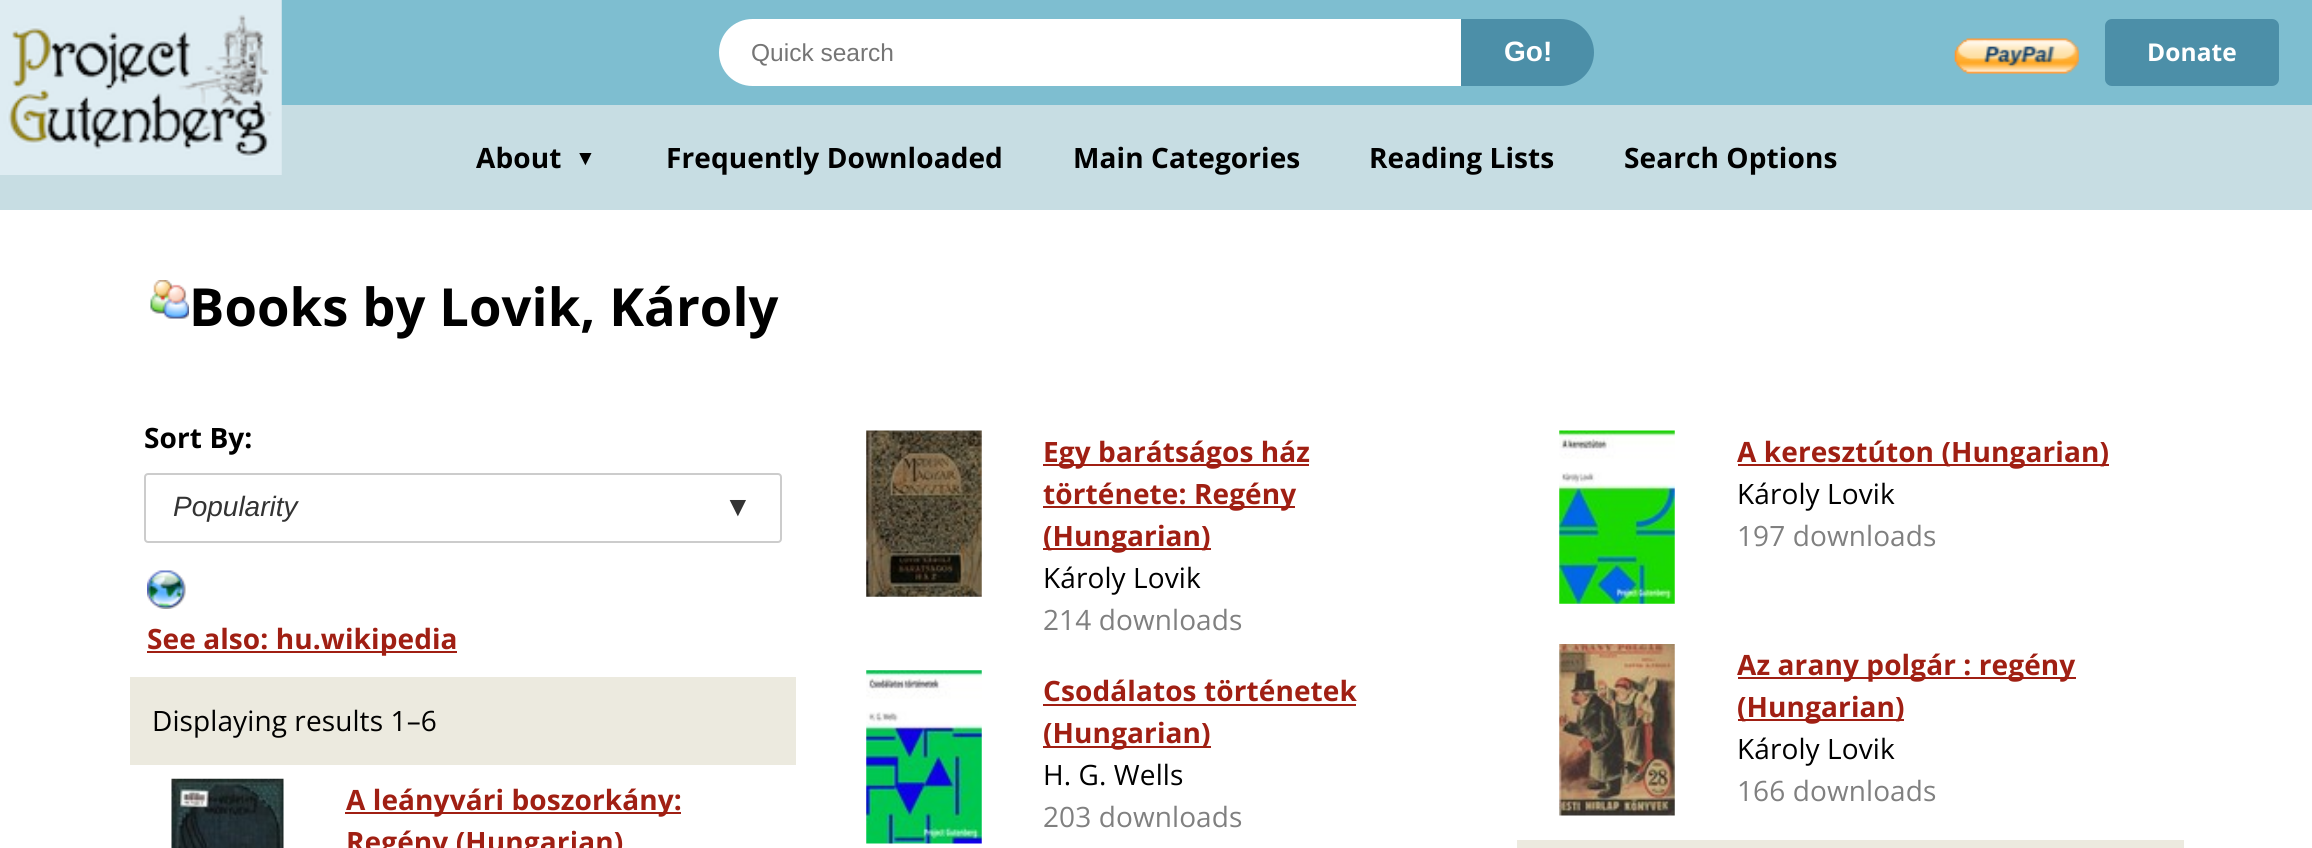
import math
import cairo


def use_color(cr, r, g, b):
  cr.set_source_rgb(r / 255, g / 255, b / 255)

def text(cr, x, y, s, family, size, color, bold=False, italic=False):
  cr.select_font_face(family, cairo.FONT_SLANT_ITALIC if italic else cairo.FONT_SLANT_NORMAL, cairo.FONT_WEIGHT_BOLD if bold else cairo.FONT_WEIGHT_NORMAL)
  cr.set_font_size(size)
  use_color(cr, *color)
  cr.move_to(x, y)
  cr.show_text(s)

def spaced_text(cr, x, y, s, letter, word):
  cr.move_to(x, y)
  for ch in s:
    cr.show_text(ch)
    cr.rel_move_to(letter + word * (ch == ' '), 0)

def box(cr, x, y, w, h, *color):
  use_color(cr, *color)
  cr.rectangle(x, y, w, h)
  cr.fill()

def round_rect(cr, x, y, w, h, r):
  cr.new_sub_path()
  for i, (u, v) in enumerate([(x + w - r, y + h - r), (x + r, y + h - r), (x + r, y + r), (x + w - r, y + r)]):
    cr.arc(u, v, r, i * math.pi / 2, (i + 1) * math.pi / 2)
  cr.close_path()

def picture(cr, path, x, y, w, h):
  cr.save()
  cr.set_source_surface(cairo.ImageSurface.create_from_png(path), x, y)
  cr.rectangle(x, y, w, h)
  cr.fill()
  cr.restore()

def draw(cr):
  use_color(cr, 255, 255, 255)
  cr.paint()
  box(cr, 281, 0, 2031, 105, 126, 190, 208)
  box(cr, 0, 105, 2312, 105, 199, 221, 227)
  picture(cr, "img_01.png", 0, 0, 282, 175)
  use_color(cr, 255, 255, 255)
  cr.new_path()
  cr.move_to(752.5, 21)
  cr.line_to(1459, 21)
  cr.line_to(1459, 84)
  cr.line_to(752.5, 84)
  cr.curve_to(735, 84, 721, 70, 721, 52.5)
  cr.curve_to(721, 35, 735, 21, 752.5, 21)
  cr.close_path()
  cr.fill_preserve()
  cr.set_line_width(4)
  cr.stroke()
  use_color(cr, 76, 143, 168)
  cr.new_path()
  cr.move_to(1461, 19)
  cr.line_to(1560.5, 19)
  cr.curve_to(1579, 19, 1594, 34, 1594, 52.5)
  cr.curve_to(1594, 71, 1579, 86, 1560.5, 86)
  cr.line_to(1461, 86)
  cr.close_path()
  cr.fill()
  picture(cr, "img_02.png", 1954, 38, 125, 36)
  round_rect(cr, 2107, 21, 170, 63, 5)
  cr.fill_preserve()
  cr.stroke()
  picture(cr, "img_03.png", 150, 280, 39, 39)
  picture(cr, "img_04.png", 866, 430, 116, 167)
  box(cr, 1043, 464, 266, 2, 160, 31, 19)
  box(cr, 1043, 506, 252, 2, 160, 31, 19)
  box(cr, 1043, 548, 168, 2, 160, 31, 19)
  picture(cr, "img_05.png", 1559, 430, 116, 174)
  box(cr, 1738, 464, 371, 2, 160, 31, 19)
  round_rect(cr, 145, 474, 636, 68, 3)
  use_color(cr, 204, 204, 204)
  cr.set_line_width(2)
  cr.stroke()
  picture(cr, "img_06.png", 147, 570, 39, 39)
  box(cr, 147, 651, 310, 2, 160, 31, 19)
  box(cr, 130, 677, 666, 88, 236, 234, 223)
  picture(cr, "img_07.png", 866, 670, 116, 174)
  box(cr, 1043, 704, 313, 2, 160, 31, 19)
  box(cr, 1043, 746, 168, 2, 160, 31, 19)
  picture(cr, "img_08.png", 1559, 644, 116, 172)
  box(cr, 1738, 677, 338, 2, 160, 31, 19)
  box(cr, 1738, 719, 166, 2, 160, 31, 19)
  picture(cr, "img_09.png", 171, 778, 113, 70)
  box(cr, 345, 812, 336, 2, 160, 31, 19)
  box(cr, 1517, 840, 667, 8, 236, 234, 223)
  text(cr, 751, 61, "Quick search", "Liberation Sans", 24.5, (117, 117, 117))
  text(cr, 1504, 61, "Go!", "Liberation Sans", 28, (255, 255, 255), bold=True)
  cr.select_font_face("Open Sans", cairo.FONT_SLANT_NORMAL, cairo.FONT_WEIGHT_BOLD)
  cr.set_font_size(24.5)
  spaced_text(cr, 2147, 61, "Donate", 0.1, 0)
  cr.set_font_size(28)
  use_color(cr, 0, 0, 0)
  spaced_text(cr, 476, 168, "About", 0.1, 0)
  cr.select_font_face("Liberation Sans", cairo.FONT_SLANT_NORMAL, cairo.FONT_WEIGHT_BOLD)
  cr.set_font_size(21)
  spaced_text(cr, 575, 165, "▼", 0.1, 0)
  cr.select_font_face("Open Sans", cairo.FONT_SLANT_NORMAL, cairo.FONT_WEIGHT_BOLD)
  cr.set_font_size(28)
  spaced_text(cr, 666, 168, "Frequently Downloaded", 0.1, 0)
  spaced_text(cr, 1073, 168, "Main Categories", 0.1, 0)
  spaced_text(cr, 1369, 168, "Reading Lists", 0.1, 0)
  spaced_text(cr, 1624, 168, "Search Options", 0.1, 0)
  cr.set_font_size(52.5)
  spaced_text(cr, 189, 326, "Books by Lovik, Károly", 0.1, 0)
  cr.set_font_size(28)
  spaced_text(cr, 144, 448, "Sort By:", 0.1, 0)
  use_color(cr, 160, 31, 19)
  spaced_text(cr, 1043, 462, "Egy barátságos ház", 0.1, 0)
  spaced_text(cr, 1043, 504, "története: Regény", 0.1, 0)
  spaced_text(cr, 1043, 546, "(Hungarian)", 0.1, 0)
  cr.select_font_face("Open Sans")
  use_color(cr, 0, 0, 0)
  spaced_text(cr, 1043, 588, "Károly Lovik", 0.1, 0)
  use_color(cr, 128, 128, 128)
  spaced_text(cr, 1043, 630, "214 downloads", 0.1, 0)
  cr.select_font_face("Open Sans", cairo.FONT_SLANT_NORMAL, cairo.FONT_WEIGHT_BOLD)
  use_color(cr, 160, 31, 19)
  spaced_text(cr, 1737, 462, "A keresztúton (Hungarian)", 0.1, 0)
  cr.select_font_face("Open Sans")
  use_color(cr, 0, 0, 0)
  spaced_text(cr, 1737, 504, "Károly Lovik", 0.1, 0)
  use_color(cr, 128, 128, 128)
  spaced_text(cr, 1737, 546, "197 downloads", 0.1, 0)
  text(cr, 173, 516, "Popularity", "Liberation Sans", 28, (51, 51, 51), italic=True)
  text(cr, 724, 516, "▼", "Liberation Sans", 28, (51, 51, 51), italic=True)
  cr.select_font_face("Open Sans", cairo.FONT_SLANT_NORMAL, cairo.FONT_WEIGHT_BOLD)
  use_color(cr, 160, 31, 19)
  spaced_text(cr, 147, 649, "See also: hu.wikipedia", 0.1, 0)
  cr.select_font_face("Open Sans")
  use_color(cr, 0, 0, 0)
  spaced_text(cr, 152, 731, "Displaying results 1–6", 0.1, 0)
  cr.select_font_face("Open Sans", cairo.FONT_SLANT_NORMAL, cairo.FONT_WEIGHT_BOLD)
  use_color(cr, 160, 31, 19)
  spaced_text(cr, 1043, 701, "Csodálatos történetek", 0.1, 0)
  spaced_text(cr, 1043, 743, "(Hungarian)", 0.1, 0)
  cr.select_font_face("Open Sans")
  use_color(cr, 0, 0, 0)
  spaced_text(cr, 1043, 785, "H. G. Wells", 0.1, 0)
  use_color(cr, 128, 128, 128)
  spaced_text(cr, 1043, 827, "203 downloads", 0.1, 0)
  cr.select_font_face("Open Sans", cairo.FONT_SLANT_NORMAL, cairo.FONT_WEIGHT_BOLD)
  use_color(cr, 160, 31, 19)
  spaced_text(cr, 1737, 675, "Az arany polgár : regény", 0.1, 0)
  spaced_text(cr, 1737, 717, "(Hungarian)", 0.1, 0)
  cr.select_font_face("Open Sans")
  use_color(cr, 0, 0, 0)
  spaced_text(cr, 1737, 759, "Károly Lovik", 0.1, 0)
  use_color(cr, 128, 128, 128)
  spaced_text(cr, 1737, 801, "166 downloads", 0.1, 0)
  cr.select_font_face("Open Sans", cairo.FONT_SLANT_NORMAL, cairo.FONT_WEIGHT_BOLD)
  use_color(cr, 160, 31, 19)
  spaced_text(cr, 346, 810, "A leányvári boszorkány:", 0.1, 0)
  spaced_text(cr, 346, 852, "Regény (Hungarian)", 0.1, 0)


surface = cairo.ImageSurface(cairo.FORMAT_RGB24, 2312, 848)
cr = cairo.Context(surface)
options = cairo.FontOptions()
options.set_hint_metrics(cairo.HINT_METRICS_OFF)
options.set_hint_style(cairo.HINT_STYLE_NONE)
cr.set_font_options(options)
cr.set_miter_limit(4)
draw(cr)
surface.write_to_png("out.png")
